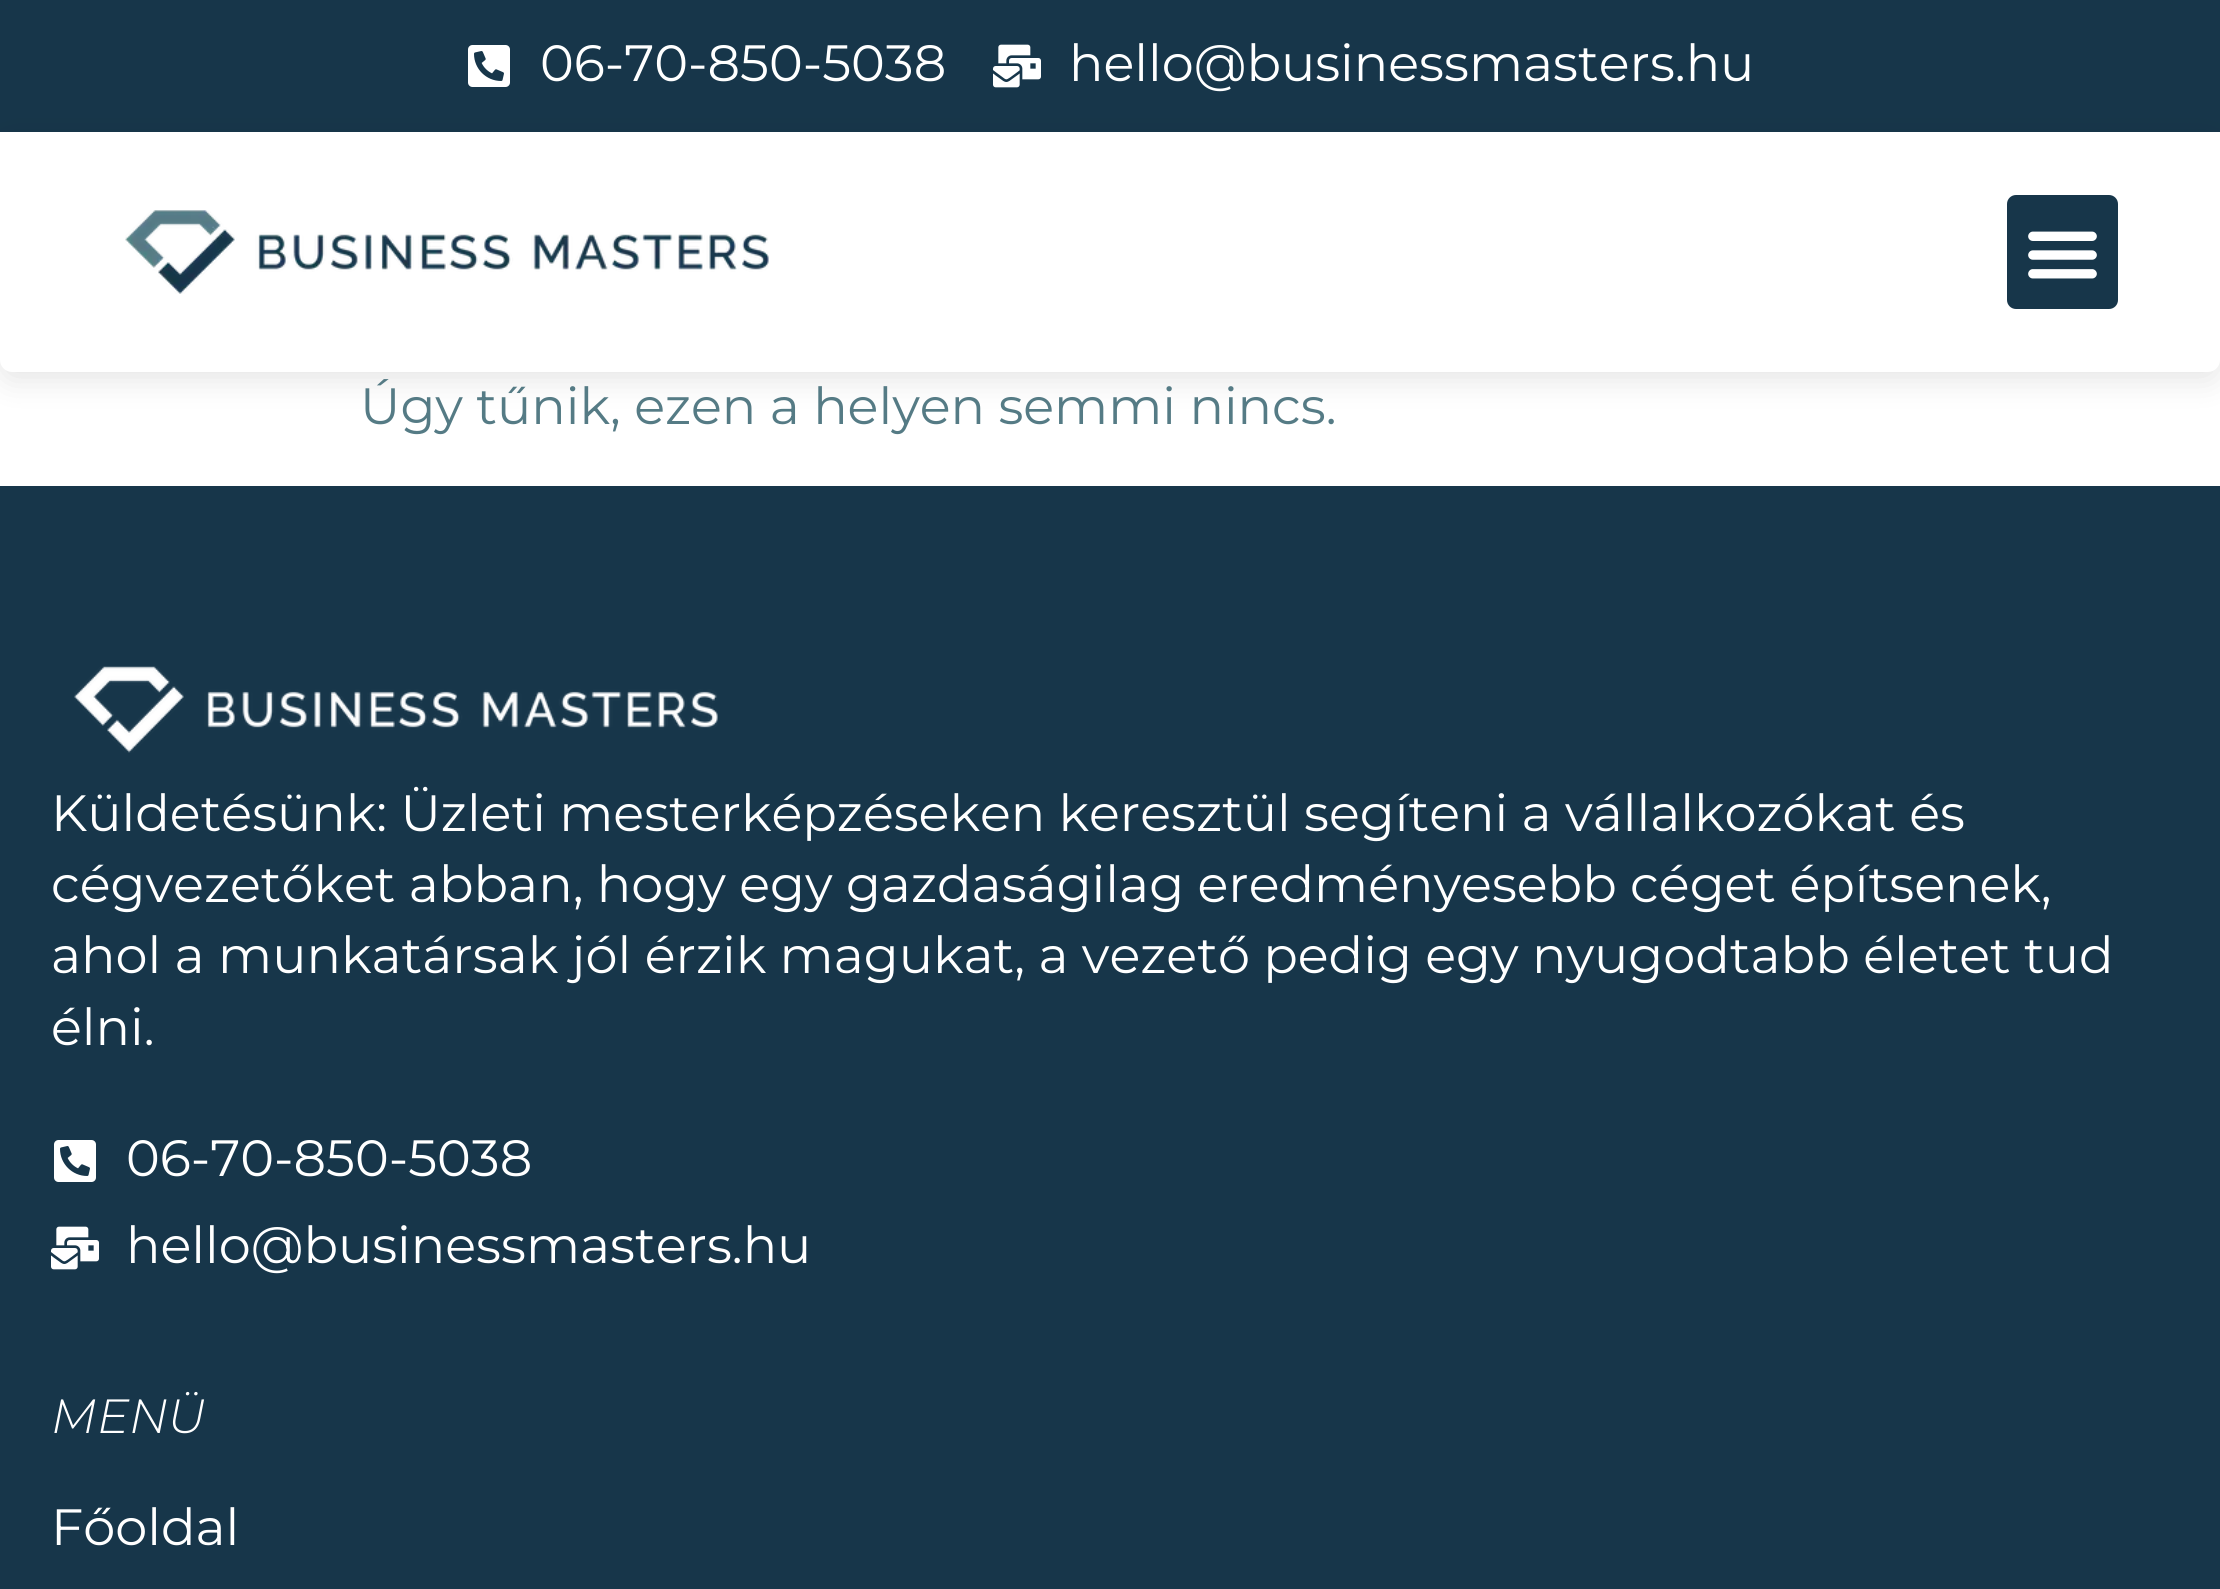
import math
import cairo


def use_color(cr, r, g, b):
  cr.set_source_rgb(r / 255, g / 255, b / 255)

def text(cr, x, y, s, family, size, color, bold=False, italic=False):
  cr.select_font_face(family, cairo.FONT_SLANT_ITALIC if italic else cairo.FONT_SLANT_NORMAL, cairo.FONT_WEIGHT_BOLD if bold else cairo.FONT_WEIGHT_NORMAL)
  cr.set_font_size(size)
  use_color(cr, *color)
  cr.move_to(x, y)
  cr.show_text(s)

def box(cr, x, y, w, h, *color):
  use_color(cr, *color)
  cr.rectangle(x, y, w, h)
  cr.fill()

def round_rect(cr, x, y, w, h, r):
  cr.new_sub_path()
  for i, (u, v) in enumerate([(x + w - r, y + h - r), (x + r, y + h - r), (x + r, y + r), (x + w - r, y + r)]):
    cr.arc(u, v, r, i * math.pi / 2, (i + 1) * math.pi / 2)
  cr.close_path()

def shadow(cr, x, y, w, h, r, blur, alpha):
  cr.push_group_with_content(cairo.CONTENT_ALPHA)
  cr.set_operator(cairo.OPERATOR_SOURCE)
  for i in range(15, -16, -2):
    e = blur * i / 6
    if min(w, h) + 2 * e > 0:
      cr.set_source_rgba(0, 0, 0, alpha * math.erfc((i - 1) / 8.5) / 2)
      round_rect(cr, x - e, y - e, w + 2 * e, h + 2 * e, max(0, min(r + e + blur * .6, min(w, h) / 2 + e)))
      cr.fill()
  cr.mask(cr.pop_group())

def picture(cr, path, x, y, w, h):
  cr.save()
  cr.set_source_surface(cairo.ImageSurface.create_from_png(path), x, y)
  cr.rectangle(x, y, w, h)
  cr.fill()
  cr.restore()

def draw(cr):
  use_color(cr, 255, 255, 255)
  cr.paint()
  box(cr, 0, 0, 2220, 132, 23, 54, 74)
  picture(cr, "img_01.png", 468, 45, 42, 42)
  picture(cr, "img_02.png", 993, 44, 48, 44)
  use_color(cr, 0, 0, 0)
  shadow(cr, 0, 141, 2220, 240, 12, 15, 0.1)
  use_color(cr, 255, 255, 255)
  cr.new_path()
  cr.move_to(0, 132)
  cr.line_to(2220, 132)
  cr.line_to(2220, 360)
  cr.curve_to(2220, 366.5, 2214.5, 372, 2208, 372)
  cr.line_to(12, 372)
  cr.curve_to(5.5, 372, 0, 366.5, 0, 360)
  cr.close_path()
  cr.fill()
  picture(cr, "img_03.png", 125, 210, 644, 84)
  use_color(cr, 23, 54, 74)
  round_rect(cr, 2007, 195, 111, 114, 9)
  cr.fill()
  picture(cr, "img_04.png", 2028, 231, 69, 48)
  box(cr, 0, 486, 2220, 1103, 23, 54, 74)
  picture(cr, "img_05.png", 74, 666, 644, 87)
  picture(cr, "img_01.png", 54, 1140, 42, 42)
  picture(cr, "img_02.png", 51, 1226, 48, 44)
  text(cr, 540, 81, "06-70-850-5038", "Montserrat", 51, (255, 255, 255))
  text(cr, 1069, 81, "hello@businessmasters.hu", "Montserrat", 51, (255, 255, 255))
  text(cr, 360, 424, "Úgy tűnik, ezen a helyen semmi nincs.", "Montserrat", 51, (85, 123, 133))
  text(cr, 51, 831, "Küldetésünk: Üzleti mesterképzéseken keresztül segíteni a vállalkozókat és", "Montserrat", 51, (255, 255, 255))
  text(cr, 51, 902, "cégvezetőket abban, hogy egy gazdaságilag eredményesebb céget építsenek,", "Montserrat", 51, (255, 255, 255))
  text(cr, 51, 973, "ahol a munkatársak jól érzik magukat, a vezető pedig egy nyugodtabb életet tud", "Montserrat", 51, (255, 255, 255))
  text(cr, 51, 1045, "élni.", "Montserrat", 51, (255, 255, 255))
  text(cr, 126, 1176, "06-70-850-5038", "Montserrat", 51, (255, 255, 255))
  text(cr, 126, 1263, "hello@businessmasters.hu", "Montserrat", 51, (255, 255, 255))
  text(cr, 51, 1433, "MENÜ", "Montserrat Light", 48, (255, 255, 255), italic=True)
  text(cr, 51, 1545, "Főoldal", "Montserrat", 51, (255, 255, 255))


surface = cairo.ImageSurface(cairo.FORMAT_RGB24, 2220, 1589)
cr = cairo.Context(surface)
options = cairo.FontOptions()
options.set_hint_metrics(cairo.HINT_METRICS_OFF)
options.set_hint_style(cairo.HINT_STYLE_NONE)
cr.set_font_options(options)
cr.set_miter_limit(4)
draw(cr)
surface.write_to_png("out.png")
